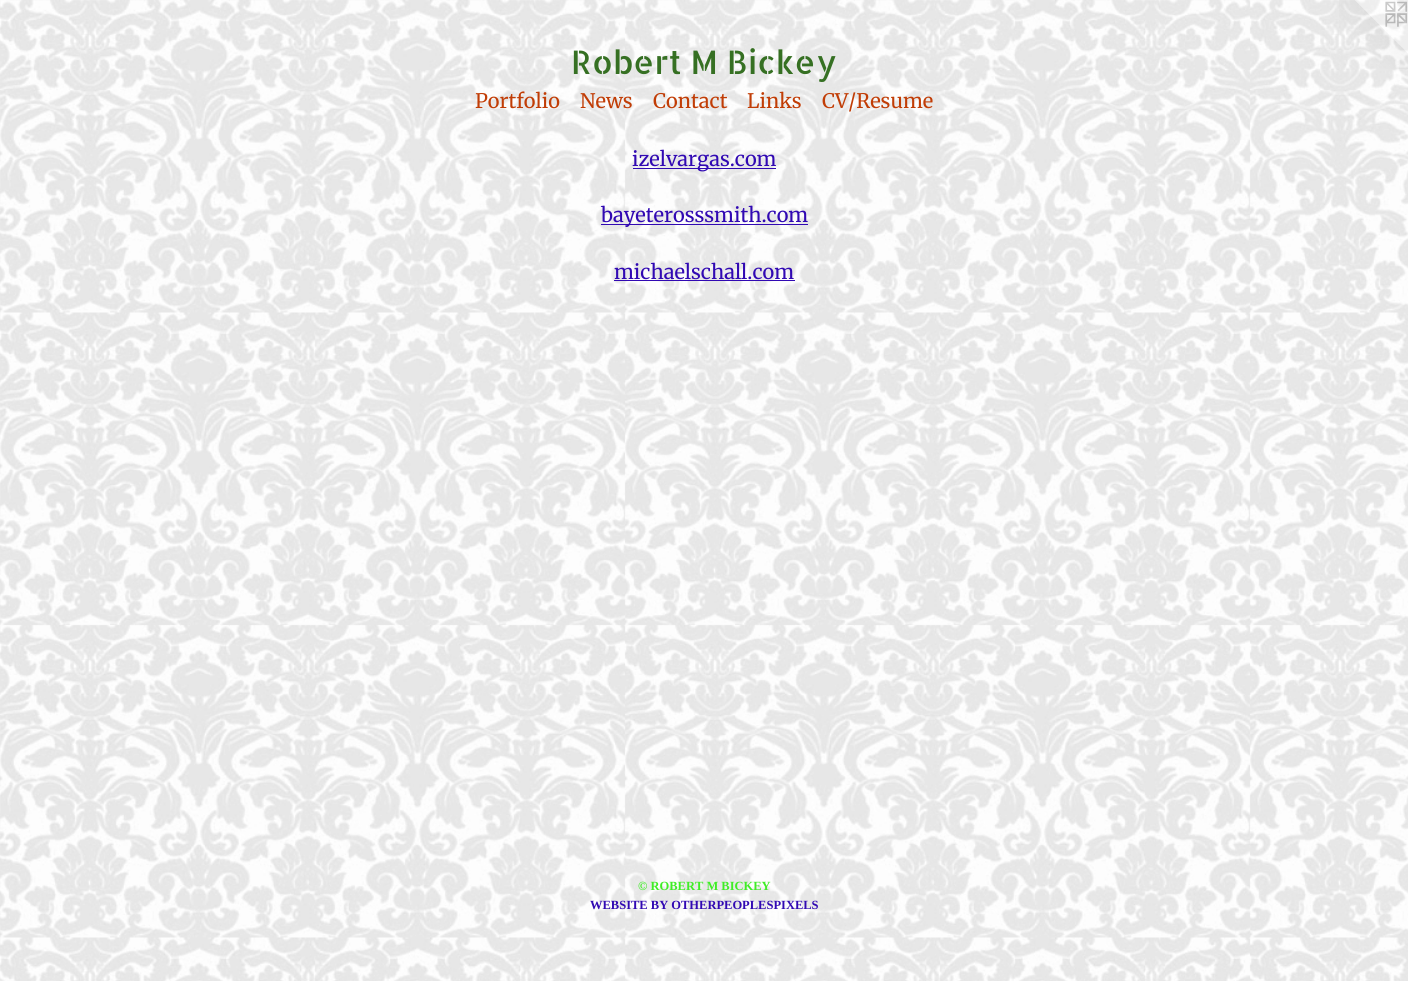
import math
import cairo


def use_color(cr, r, g, b):
  cr.set_source_rgb(r / 255, g / 255, b / 255)

def text(cr, x, y, s, family, size, color, bold=False, italic=False):
  cr.select_font_face(family, cairo.FONT_SLANT_ITALIC if italic else cairo.FONT_SLANT_NORMAL, cairo.FONT_WEIGHT_BOLD if bold else cairo.FONT_WEIGHT_NORMAL)
  cr.set_font_size(size)
  use_color(cr, *color)
  cr.move_to(x, y)
  cr.show_text(s)

def box(cr, x, y, w, h, *color):
  use_color(cr, *color)
  cr.rectangle(x, y, w, h)
  cr.fill()

def picture(cr, path, x, y, w, h):
  cr.save()
  cr.set_source_surface(cairo.ImageSurface.create_from_png(path), x, y)
  cr.rectangle(x, y, w, h)
  cr.fill()
  cr.restore()

def draw(cr):
  use_color(cr, 255, 255, 255)
  cr.paint()
  picture(cr, "img_01.png", 0, 0, 1408, 981)
  picture(cr, "img_02.png", 1339, 0, 69, 69)
  box(cr, 633, 168, 143, 1, 49, 9, 179)
  box(cr, 601, 224, 207, 1, 49, 9, 179)
  box(cr, 614, 280, 181, 1, 49, 9, 179)
  text(cr, 571, 74, "Robert M Bickey", "Allerta Stencil", 32.5, (54, 112, 35))
  text(cr, 475, 108, "Portfolio", "Merriweather Light", 20, (193, 61, 6))
  text(cr, 580, 108, "News", "Merriweather Light", 20, (193, 61, 6))
  text(cr, 653, 108, "Contact", "Merriweather Light", 20, (193, 61, 6))
  text(cr, 747, 108, "Links", "Merriweather Light", 20, (193, 61, 6))
  text(cr, 822, 108, "CV/Resume", "Merriweather Light", 20, (193, 61, 6))
  text(cr, 632, 166, "izelvargas.com", "Merriweather Light", 20, (49, 9, 179))
  text(cr, 601, 222, "bayeterosssmith.com", "Merriweather Light", 20, (49, 9, 179))
  text(cr, 614, 279, "michaelschall.com", "Merriweather Light", 20, (49, 9, 179))
  text(cr, 638, 890, "© ROBERT M BICKEY", "Liberation Serif", 12.5, (63, 237, 38), bold=True)
  text(cr, 590, 909, "WEBSITE BY OTHERPEOPLESPIXELS", "Liberation Serif", 12.5, (49, 9, 179), bold=True)


surface = cairo.ImageSurface(cairo.FORMAT_RGB24, 1408, 981)
cr = cairo.Context(surface)
options = cairo.FontOptions()
options.set_hint_metrics(cairo.HINT_METRICS_OFF)
options.set_hint_style(cairo.HINT_STYLE_NONE)
cr.set_font_options(options)
cr.set_miter_limit(4)
draw(cr)
surface.write_to_png("out.png")
